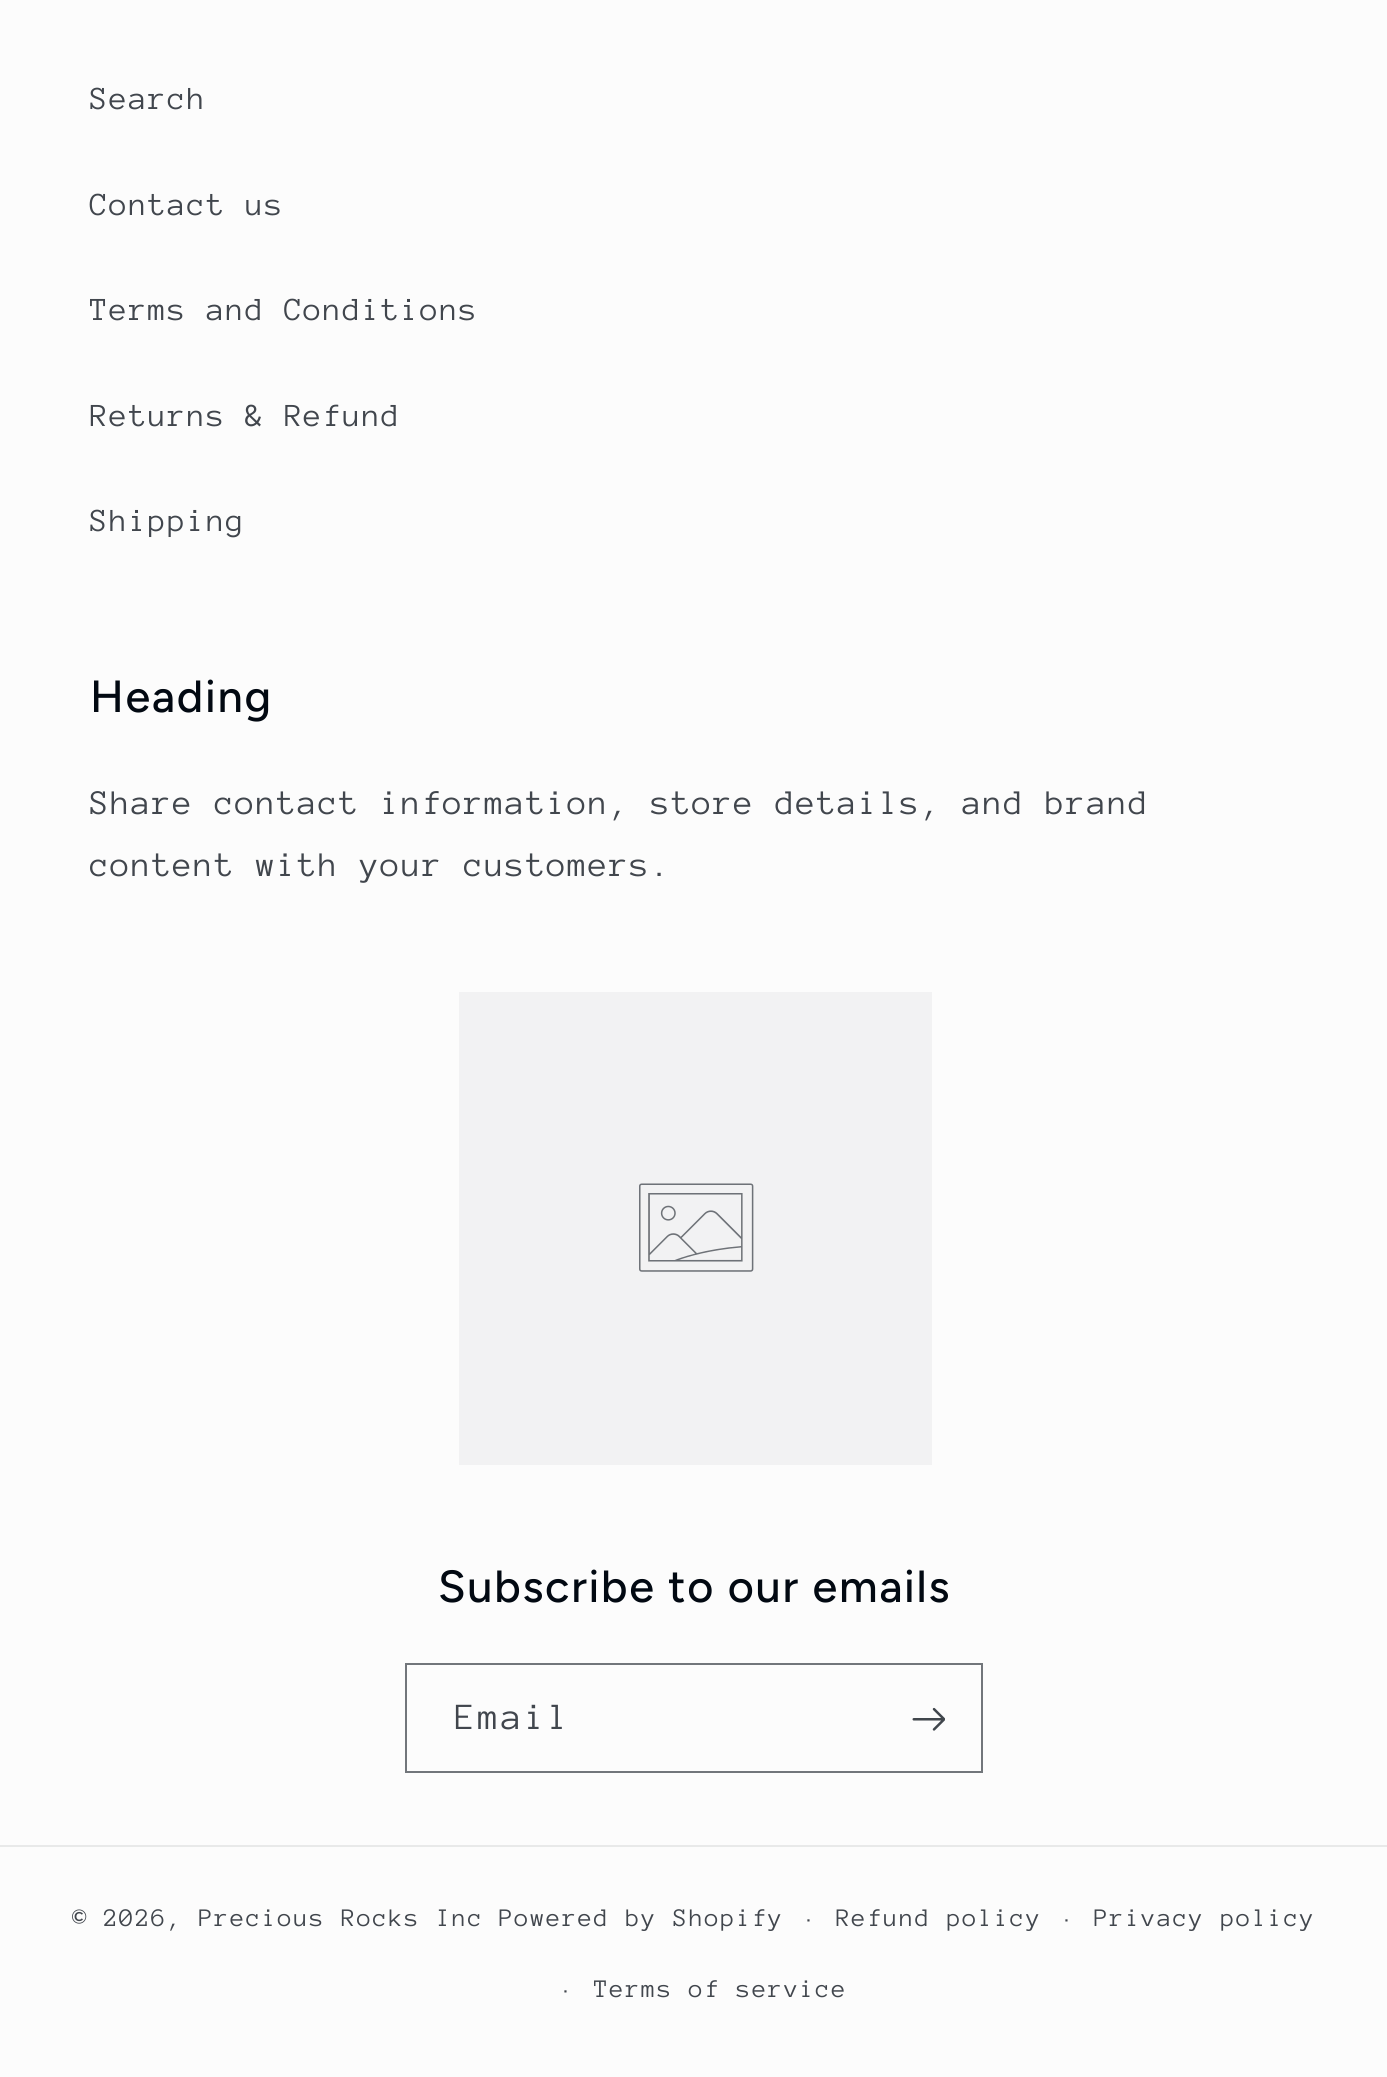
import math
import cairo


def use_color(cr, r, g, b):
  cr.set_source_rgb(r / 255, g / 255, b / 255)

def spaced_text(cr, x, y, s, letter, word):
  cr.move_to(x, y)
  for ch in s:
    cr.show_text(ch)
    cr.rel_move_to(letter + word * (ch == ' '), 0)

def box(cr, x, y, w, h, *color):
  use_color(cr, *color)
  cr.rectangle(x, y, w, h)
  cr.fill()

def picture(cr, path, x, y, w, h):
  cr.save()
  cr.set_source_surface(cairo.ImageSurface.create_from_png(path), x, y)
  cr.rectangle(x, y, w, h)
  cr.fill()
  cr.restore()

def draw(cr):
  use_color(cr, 252, 252, 252)
  cr.paint()
  box(cr, 459, 992, 473, 473, 242, 242, 243)
  picture(cr, "img_01.png", 639, 1183, 115, 89)
  cr.rectangle(406, 1664, 576, 108)
  use_color(cr, 114, 118, 123)
  cr.stroke()
  picture(cr, "img_02.png", 912, 1707, 33, 24)
  box(cr, 0, 1845, 1387, 2, 232, 233, 233)
  cr.select_font_face("Anonymous Pro")
  cr.set_font_size(33)
  use_color(cr, 65, 70, 77)
  spaced_text(cr, 90, 109, "Search", 1.42, 0)
  spaced_text(cr, 90, 215, "Contact us", 1.42, 0)
  spaced_text(cr, 90, 320, "Terms and Conditions", 1.42, 0)
  spaced_text(cr, 90, 426, "Returns & Refund", 1.42, 0)
  spaced_text(cr, 90, 531, "Shipping", 1.42, 0)
  cr.select_font_face("Figtree Medium")
  cr.set_font_size(45)
  use_color(cr, 2, 9, 18)
  spaced_text(cr, 90, 712, "Heading", 1.7, 0)
  cr.select_font_face("Anonymous Pro")
  cr.set_font_size(35.45)
  use_color(cr, 65, 70, 77)
  spaced_text(cr, 90, 814, "Share contact information, store details, and brand", 1.42, 0)
  spaced_text(cr, 90, 876, "content with your customers.", 1.42, 0)
  cr.select_font_face("Figtree Medium")
  cr.set_font_size(45)
  use_color(cr, 2, 9, 18)
  spaced_text(cr, 438, 1602, "Subscribe to our emails", 1.7, 0)
  cr.select_font_face("Anonymous Pro")
  cr.set_font_size(38)
  use_color(cr, 65, 70, 77)
  spaced_text(cr, 455, 1729, "Email", 2.5, 0)
  cr.set_font_size(26)
  spaced_text(cr, 72, 1926, "© 2026, Precious Rocks Inc", 1.65, 0)
  spaced_text(cr, 499, 1926, "Powered by Shopify", 1.65, 0)
  cr.set_font_size(24)
  spaced_text(cr, 803, 1926, "·", 1.65, 0)
  cr.set_font_size(26)
  spaced_text(cr, 836, 1926, "Refund policy", 1.65, 0)
  cr.set_font_size(24)
  spaced_text(cr, 1061, 1926, "·", 1.65, 0)
  cr.set_font_size(26)
  spaced_text(cr, 1094, 1926, "Privacy policy", 1.65, 0)
  cr.set_font_size(24)
  spaced_text(cr, 560, 1997, "·", 1.65, 0)
  cr.set_font_size(26)
  spaced_text(cr, 594, 1997, "Terms of service", 1.65, 0)


surface = cairo.ImageSurface(cairo.FORMAT_RGB24, 1387, 2077)
cr = cairo.Context(surface)
options = cairo.FontOptions()
options.set_hint_metrics(cairo.HINT_METRICS_OFF)
options.set_hint_style(cairo.HINT_STYLE_NONE)
cr.set_font_options(options)
cr.set_miter_limit(4)
draw(cr)
surface.write_to_png("out.png")
